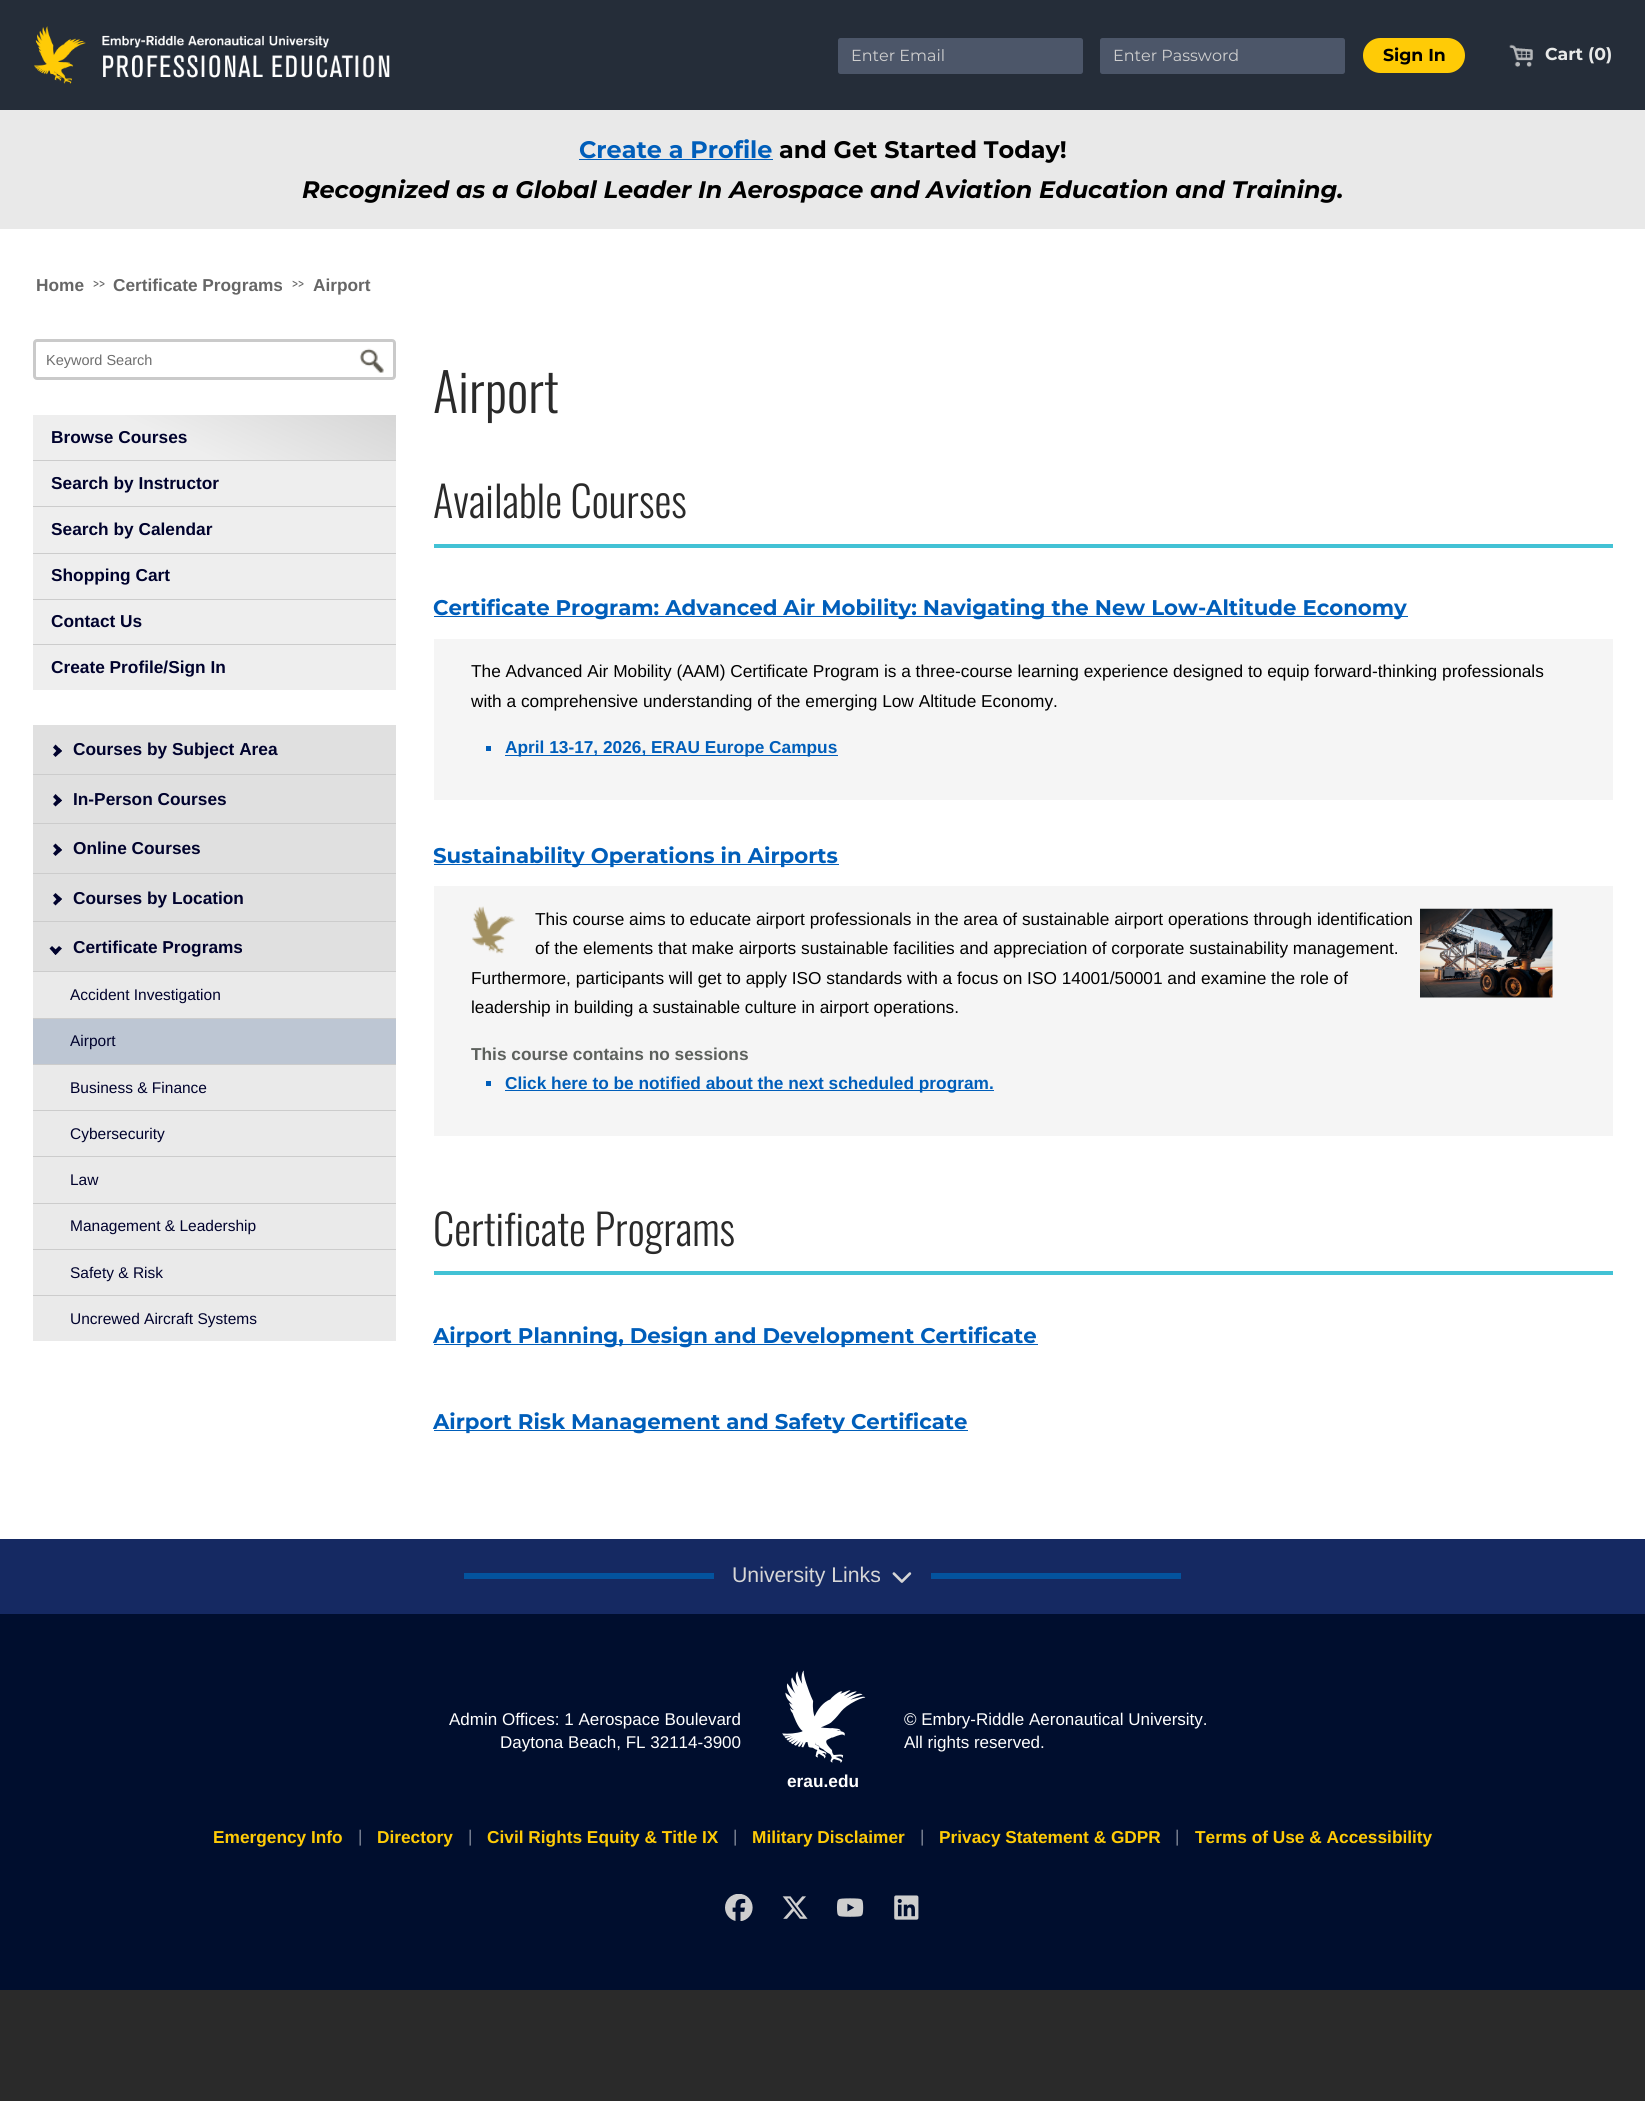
import math
import cairo


def use_color(cr, r, g, b):
  cr.set_source_rgb(r / 255, g / 255, b / 255)

def text(cr, x, y, s, family, size, color, bold=False, italic=False):
  cr.select_font_face(family, cairo.FONT_SLANT_ITALIC if italic else cairo.FONT_SLANT_NORMAL, cairo.FONT_WEIGHT_BOLD if bold else cairo.FONT_WEIGHT_NORMAL)
  cr.set_font_size(size)
  use_color(cr, *color)
  cr.move_to(x, y)
  cr.show_text(s)

def box(cr, x, y, w, h, *color):
  use_color(cr, *color)
  cr.rectangle(x, y, w, h)
  cr.fill()

def round_rect(cr, x, y, w, h, r):
  cr.new_sub_path()
  for i, (u, v) in enumerate([(x + w - r, y + h - r), (x + r, y + h - r), (x + r, y + r), (x + w - r, y + r)]):
    cr.arc(u, v, r, i * math.pi / 2, (i + 1) * math.pi / 2)
  cr.close_path()

def picture(cr, path, x, y, w, h):
  cr.save()
  cr.set_source_surface(cairo.ImageSurface.create_from_png(path), x, y)
  cr.rectangle(x, y, w, h)
  cr.fill()
  cr.restore()

def draw(cr):
  use_color(cr, 42, 42, 42)
  cr.paint()
  box(cr, 0, 229, 1645, 1310, 255, 255, 255)
  box(cr, 0, 0, 1645, 110, 37, 45, 57)
  picture(cr, "img_01.png", 34, 26, 356, 58)
  use_color(cr, 76, 86, 105)
  round_rect(cr, 838, 38, 245, 36, 2.5)
  cr.fill()
  round_rect(cr, 1100, 38, 245, 36, 2.5)
  cr.fill()
  use_color(cr, 255, 203, 6)
  round_rect(cr, 1363, 38, 102, 35, 17.5)
  cr.fill()
  picture(cr, "img_02.png", 1509, 44, 24, 23)
  box(cr, 0, 110, 1645, 119, 233, 233, 233)
  box(cr, 579, 159, 194, 1, 0, 94, 186)
  round_rect(cr, 34.5, 340.5, 360, 38, 2.5)
  use_color(cr, 202, 202, 202)
  cr.set_line_width(3)
  cr.stroke()
  picture(cr, "img_03.png", 359, 348, 25, 25)
  gradient = cairo.LinearGradient(255, 349, 173, 526)
  gradient.add_color_stop_rgba(0, 0.839, 0.839, 0.839, 1)
  gradient.add_color_stop_rgba(0.6, 0.933, 0.933, 0.933, 1)
  cr.set_source(gradient)
  cr.rectangle(33, 415, 363, 45)
  cr.fill()
  box(cr, 33, 461, 363, 45, 238, 238, 238)
  box(cr, 33, 460, 363, 1, 204, 204, 204)
  box(cr, 33, 507, 363, 46, 238, 238, 238)
  box(cr, 33, 506, 363, 1, 204, 204, 204)
  box(cr, 33, 554, 363, 45, 238, 238, 238)
  box(cr, 33, 553, 363, 1, 204, 204, 204)
  box(cr, 33, 600, 363, 44, 238, 238, 238)
  box(cr, 33, 599, 363, 1, 204, 204, 204)
  box(cr, 33, 645, 363, 45, 238, 238, 238)
  box(cr, 33, 644, 363, 1, 204, 204, 204)
  box(cr, 33, 725, 363, 49, 224, 224, 224)
  use_color(cr, 0, 2, 45)
  cr.new_path()
  cr.move_to(53, 747.5)
  cr.line_to(55.5, 744.5)
  cr.line_to(62, 751)
  cr.line_to(59, 753.5)
  cr.close_path()
  cr.fill()
  box(cr, 33, 775, 363, 48, 224, 224, 224)
  box(cr, 33, 774, 363, 1, 204, 204, 204)
  use_color(cr, 0, 2, 45)
  cr.new_path()
  cr.move_to(53, 754.5)
  cr.line_to(59, 748)
  cr.line_to(62, 751)
  cr.line_to(55.5, 757)
  cr.close_path()
  cr.move_to(53, 797)
  cr.line_to(55.5, 794)
  cr.line_to(62, 800.5)
  cr.line_to(59, 803)
  cr.close_path()
  cr.fill()
  box(cr, 33, 824, 363, 49, 224, 224, 224)
  box(cr, 33, 823, 363, 1, 204, 204, 204)
  use_color(cr, 0, 2, 45)
  cr.new_path()
  cr.move_to(53, 804)
  cr.line_to(59, 797.5)
  cr.line_to(62, 800.5)
  cr.line_to(55.5, 806.5)
  cr.close_path()
  cr.move_to(53, 846)
  cr.line_to(55.5, 843.5)
  cr.line_to(62, 850)
  cr.line_to(59, 852.5)
  cr.close_path()
  cr.fill()
  box(cr, 33, 874, 363, 47, 224, 224, 224)
  box(cr, 33, 873, 363, 1, 204, 204, 204)
  use_color(cr, 0, 2, 45)
  cr.new_path()
  cr.move_to(53, 853.5)
  cr.line_to(59, 847)
  cr.line_to(62, 850)
  cr.line_to(55.5, 856)
  cr.close_path()
  cr.move_to(53, 895.5)
  cr.line_to(55.5, 893)
  cr.line_to(62, 899)
  cr.line_to(59, 902)
  cr.close_path()
  cr.fill()
  box(cr, 33, 922, 363, 49, 224, 224, 224)
  box(cr, 33, 921, 363, 1, 204, 204, 204)
  use_color(cr, 0, 2, 45)
  cr.new_path()
  cr.move_to(53, 903)
  cr.line_to(59, 896.5)
  cr.line_to(62, 899)
  cr.line_to(55.5, 905.5)
  cr.close_path()
  cr.move_to(59, 946)
  cr.line_to(62, 948.5)
  cr.line_to(55.5, 955)
  cr.line_to(53, 952)
  cr.close_path()
  cr.fill()
  cr.new_path()
  cr.move_to(52, 946)
  cr.line_to(58.5, 952)
  cr.line_to(55.5, 955)
  cr.line_to(49.5, 948.5)
  cr.close_path()
  cr.fill()
  box(cr, 33, 972, 363, 46, 234, 234, 234)
  box(cr, 33, 971, 363, 1, 204, 204, 204)
  box(cr, 33, 1019, 363, 45, 189, 198, 211)
  box(cr, 33, 1018, 363, 1, 204, 204, 204)
  box(cr, 33, 1065, 363, 45, 234, 234, 234)
  box(cr, 33, 1064, 363, 1, 204, 204, 204)
  box(cr, 33, 1111, 363, 45, 234, 234, 234)
  box(cr, 33, 1110, 363, 1, 204, 204, 204)
  box(cr, 33, 1157, 363, 46, 234, 234, 234)
  box(cr, 33, 1156, 363, 1, 204, 204, 204)
  box(cr, 33, 1204, 363, 45, 234, 234, 234)
  box(cr, 33, 1203, 363, 1, 204, 204, 204)
  box(cr, 33, 1250, 363, 45, 234, 234, 234)
  box(cr, 33, 1249, 363, 1, 204, 204, 204)
  box(cr, 33, 1296, 363, 45, 234, 234, 234)
  box(cr, 33, 1295, 363, 1, 204, 204, 204)
  box(cr, 434, 544, 1179, 4, 66, 194, 213)
  box(cr, 434, 616, 974, 1, 0, 94, 186)
  box(cr, 434, 639, 1179, 161, 245, 245, 245)
  box(cr, 486, 746, 5, 5, 0, 94, 186)
  box(cr, 505, 755, 333, 1, 0, 94, 186)
  box(cr, 434, 864, 405, 1, 0, 94, 186)
  box(cr, 434, 886, 1179, 250, 245, 245, 245)
  picture(cr, "img_04.png", 472, 906, 43, 48)
  picture(cr, "img_05.png", 1420, 908, 133, 90)
  box(cr, 486, 1081, 5, 5, 0, 94, 186)
  box(cr, 505, 1090, 489, 1, 0, 94, 186)
  box(cr, 434, 1271, 1179, 4, 66, 194, 213)
  box(cr, 434, 1344, 604, 1, 0, 94, 186)
  box(cr, 434, 1430, 534, 1, 0, 94, 186)
  box(cr, 0, 1539, 1645, 75, 21, 41, 98)
  box(cr, 464, 1573, 250, 6, 3, 83, 158)
  picture(cr, "img_06.png", 892, 1572, 20, 11)
  box(cr, 931, 1573, 250, 6, 3, 83, 158)
  box(cr, 0, 1614, 1645, 376, 0, 14, 46)
  picture(cr, "img_07.png", 782, 1670, 84, 93)
  picture(cr, "img_08.png", 725, 1894, 28, 27)
  picture(cr, "img_09.png", 782, 1896, 26, 23)
  picture(cr, "img_10.png", 836, 1898, 28, 19)
  picture(cr, "img_11.png", 894, 1895, 25, 25)
  text(cr, 851, 61, "Enter Email", "Montserrat", 16, (207, 207, 207))
  text(cr, 1113, 61, "Enter Password", "Montserrat", 16, (207, 207, 207))
  text(cr, 1383, 61, "Sign In", "Montserrat", 17.28, (0, 0, 0), bold=True)
  text(cr, 1545, 60, "Cart (0)", "Montserrat", 17.28, (232, 233, 232), bold=True)
  text(cr, 579, 158, "Create a Profile", "Montserrat", 23.9, (0, 94, 186), bold=True)
  text(cr, 779, 158, "and Get Started Today!", "Montserrat", 23.9, (0, 0, 0), bold=True)
  text(cr, 302, 198, "Recognized as a Global Leader In Aerospace and Aviation Education and Training.", "Montserrat", 23.9, (0, 0, 0), bold=True, italic=True)
  text(cr, 36, 291, "Home", "Liberation Sans", 17.28, (102, 102, 102), bold=True)
  text(cr, 93, 291, ">>", "Oswald Light", 17.28, (102, 102, 102))
  text(cr, 113, 291, "Certificate Programs", "Liberation Sans", 17.28, (102, 102, 102), bold=True)
  text(cr, 292, 291, ">>", "Oswald Light", 17.28, (102, 102, 102))
  text(cr, 313, 291, "Airport", "Liberation Sans", 17.28, (102, 102, 102), bold=True)
  text(cr, 46, 365, "Keyword Search", "Liberation Sans", 14.5, (110, 110, 110))
  text(cr, 51, 443, "Browse Courses", "Liberation Sans", 17.28, (0, 2, 45), bold=True)
  text(cr, 51, 489, "Search by Instructor", "Liberation Sans", 17.28, (0, 2, 45), bold=True)
  text(cr, 51, 535, "Search by Calendar", "Liberation Sans", 17.28, (0, 2, 45), bold=True)
  text(cr, 51, 581, "Shopping Cart", "Liberation Sans", 17.28, (0, 2, 45), bold=True)
  text(cr, 51, 627, "Contact Us", "Liberation Sans", 17.28, (0, 2, 45), bold=True)
  text(cr, 51, 673, "Create Profile/Sign In", "Liberation Sans", 17.28, (0, 2, 45), bold=True)
  text(cr, 73, 755, "Courses by Subject Area", "Liberation Sans", 17.28, (0, 2, 45), bold=True)
  text(cr, 73, 805, "In-Person Courses", "Liberation Sans", 17.28, (0, 2, 45), bold=True)
  text(cr, 73, 854, "Online Courses", "Liberation Sans", 17.28, (0, 2, 45), bold=True)
  text(cr, 73, 904, "Courses by Location", "Liberation Sans", 17.28, (0, 2, 45), bold=True)
  text(cr, 73, 953, "Certificate Programs", "Liberation Sans", 17.28, (0, 2, 45), bold=True)
  text(cr, 70, 1000, "Accident Investigation", "Liberation Sans", 15.5, (0, 2, 45))
  text(cr, 70, 1046, "Airport", "Liberation Sans", 15.5, (0, 2, 45))
  text(cr, 70, 1093, "Business & Finance", "Liberation Sans", 15.5, (0, 2, 45))
  text(cr, 70, 1139, "Cybersecurity", "Liberation Sans", 15.5, (0, 2, 45))
  text(cr, 70, 1185, "Law", "Liberation Sans", 15.5, (0, 2, 45))
  text(cr, 70, 1231, "Management & Leadership", "Liberation Sans", 15.5, (0, 2, 45))
  text(cr, 70, 1278, "Safety & Risk", "Liberation Sans", 15.5, (0, 2, 45))
  text(cr, 70, 1324, "Uncrewed Aircraft Systems", "Liberation Sans", 15.5, (0, 2, 45))
  text(cr, 433, 413, "Airport", "Oswald Light", 53, (42, 42, 42))
  text(cr, 433, 518, "Available Courses", "Oswald Light", 42.5, (42, 42, 42))
  text(cr, 433, 615, "Certificate Program: Advanced Air Mobility: Navigating the New Low-Altitude Economy", "Montserrat", 21.25, (0, 94, 186), bold=True)
  text(cr, 471, 677, "The Advanced Air Mobility (AAM) Certificate Program is a three-course learning experience designed to equip forward-thinking professionals", "Liberation Sans", 17.28, (0, 0, 0))
  text(cr, 471, 707, "with a comprehensive understanding of the emerging Low Altitude Economy.", "Liberation Sans", 17.28, (0, 0, 0))
  text(cr, 505, 753, "April 13-17, 2026, ERAU Europe Campus", "Liberation Sans", 17.28, (0, 94, 186), bold=True)
  text(cr, 433, 863, "Sustainability Operations in Airports", "Montserrat", 21.25, (0, 94, 186), bold=True)
  text(cr, 535, 925, "This course aims to educate airport professionals in the area of sustainable airport operations through identification", "Liberation Sans", 17.28, (0, 0, 0))
  text(cr, 535, 954, "of the elements that make airports sustainable facilities and appreciation of corporate sustainability management.", "Liberation Sans", 17.28, (0, 0, 0))
  text(cr, 471, 984, "Furthermore, participants will get to apply ISO standards with a focus on ISO 14001/50001 and examine the role of", "Liberation Sans", 17.28, (0, 0, 0))
  text(cr, 471, 1013, "leadership in building a sustainable culture in airport operations.", "Liberation Sans", 17.28, (0, 0, 0))
  text(cr, 471, 1060, "This course contains no sessions", "Liberation Sans", 17.28, (93, 97, 93), bold=True)
  text(cr, 505, 1089, "Click here to be notified about the next scheduled program.", "Liberation Sans", 17.28, (0, 94, 186), bold=True)
  text(cr, 433, 1246, "Certificate Programs", "Oswald Light", 42.5, (42, 42, 42))
  text(cr, 433, 1343, "Airport Planning, Design and Development Certificate", "Montserrat", 21.25, (0, 94, 186), bold=True)
  text(cr, 433, 1429, "Airport Risk Management and Safety Certificate", "Montserrat", 21.25, (0, 94, 186), bold=True)
  text(cr, 732, 1582, "University Links", "Liberation Sans", 21.25, (214, 214, 214))
  text(cr, 449, 1725, "Admin Offices: 1 Aerospace Boulevard", "Liberation Sans", 17, (255, 255, 255))
  text(cr, 500, 1748, "Daytona Beach, FL 32114-3900", "Liberation Sans", 17, (255, 255, 255))
  text(cr, 904, 1725, "© Embry-Riddle Aeronautical University.", "Liberation Sans", 17, (255, 255, 255))
  text(cr, 904, 1748, "All rights reserved.", "Liberation Sans", 17, (255, 255, 255))
  text(cr, 787, 1787, "erau.edu", "Liberation Sans", 17.28, (255, 255, 255), bold=True)
  text(cr, 213, 1843, "Emergency Info", "Liberation Sans", 17.28, (255, 203, 6), bold=True)
  text(cr, 358, 1842, "|", "Liberation Sans", 17, (128, 135, 151))
  text(cr, 377, 1843, "Directory", "Liberation Sans", 17.28, (255, 203, 6), bold=True)
  text(cr, 468, 1842, "|", "Liberation Sans", 17, (128, 135, 151))
  text(cr, 487, 1843, "Civil Rights Equity & Title IX", "Liberation Sans", 17.28, (255, 203, 6), bold=True)
  text(cr, 733, 1842, "|", "Liberation Sans", 17, (128, 135, 151))
  text(cr, 752, 1843, "Military Disclaimer", "Liberation Sans", 17.28, (255, 203, 6), bold=True)
  text(cr, 920, 1842, "|", "Liberation Sans", 17, (128, 135, 151))
  text(cr, 939, 1843, "Privacy Statement & GDPR", "Liberation Sans", 17.28, (255, 203, 6), bold=True)
  text(cr, 1175, 1842, "|", "Liberation Sans", 17, (128, 135, 151))
  text(cr, 1195, 1843, "Terms of Use & Accessibility", "Liberation Sans", 17.28, (255, 203, 6), bold=True)


surface = cairo.ImageSurface(cairo.FORMAT_RGB24, 1645, 2101)
cr = cairo.Context(surface)
options = cairo.FontOptions()
options.set_hint_metrics(cairo.HINT_METRICS_OFF)
options.set_hint_style(cairo.HINT_STYLE_NONE)
cr.set_font_options(options)
cr.set_miter_limit(4)
draw(cr)
surface.write_to_png("out.png")
